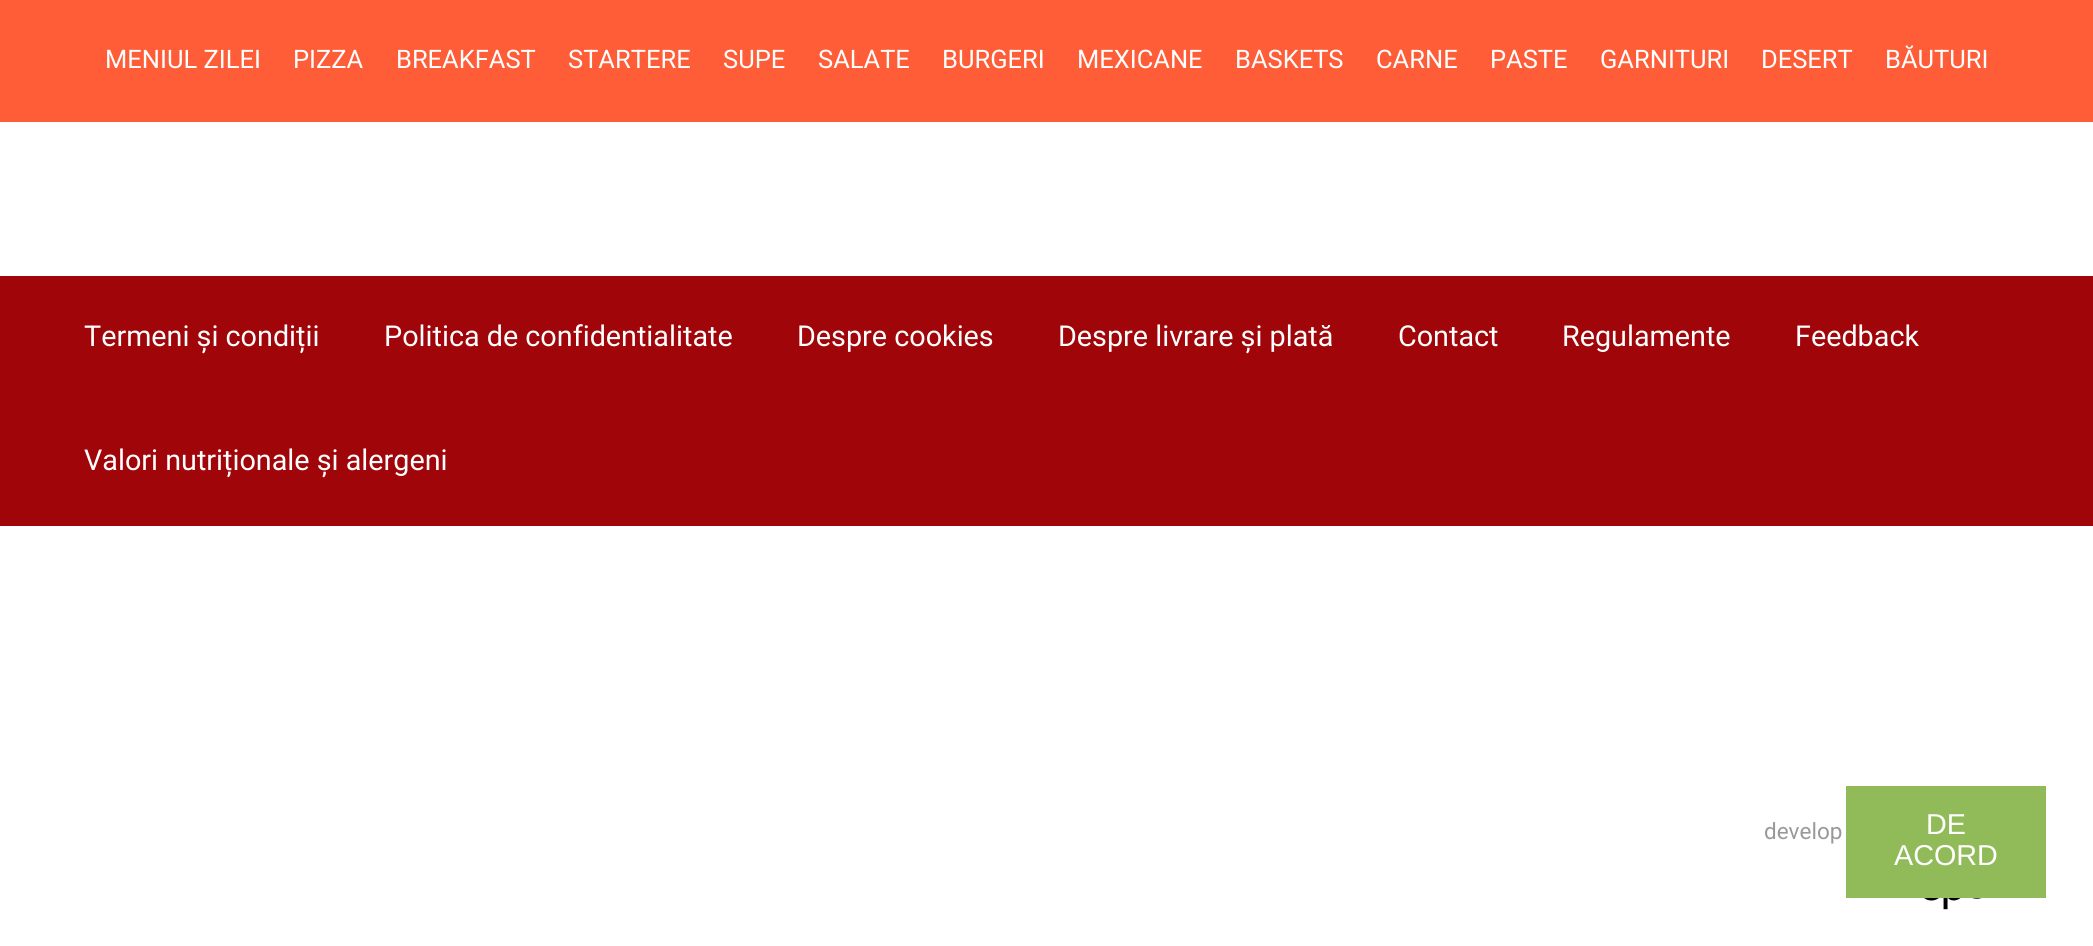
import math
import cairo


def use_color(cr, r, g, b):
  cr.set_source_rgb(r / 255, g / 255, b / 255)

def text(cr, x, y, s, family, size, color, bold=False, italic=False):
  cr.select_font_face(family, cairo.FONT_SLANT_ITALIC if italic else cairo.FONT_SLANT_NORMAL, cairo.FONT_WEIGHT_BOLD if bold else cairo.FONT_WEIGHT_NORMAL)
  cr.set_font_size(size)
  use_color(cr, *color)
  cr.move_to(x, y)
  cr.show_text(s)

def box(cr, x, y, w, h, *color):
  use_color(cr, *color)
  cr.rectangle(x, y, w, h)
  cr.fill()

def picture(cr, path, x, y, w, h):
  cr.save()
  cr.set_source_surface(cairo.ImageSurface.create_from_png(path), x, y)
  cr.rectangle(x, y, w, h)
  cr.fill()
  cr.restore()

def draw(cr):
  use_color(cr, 255, 255, 255)
  cr.paint()
  box(cr, 0, 0, 2093, 122, 255, 93, 55)
  box(cr, 0, 276, 2093, 250, 160, 5, 9)
  picture(cr, "img_01.png", 1924, 898, 58, 12)
  box(cr, 1846, 786, 200, 112, 145, 187, 89)
  text(cr, 105, 68, "MENIUL ZILEI", "Roboto", 25.5, (255, 255, 255))
  text(cr, 293, 68, "PIZZA", "Roboto", 25.5, (255, 255, 255))
  text(cr, 396, 68, "BREAKFAST", "Roboto", 25.5, (255, 255, 255))
  text(cr, 568, 68, "STARTERE", "Roboto", 25.5, (255, 255, 255))
  text(cr, 723, 68, "SUPE", "Roboto", 25.5, (255, 255, 255))
  text(cr, 818, 68, "SALATE", "Roboto", 25.5, (255, 255, 255))
  text(cr, 942, 68, "BURGERI", "Roboto", 25.5, (255, 255, 255))
  text(cr, 1077, 68, "MEXICANE", "Roboto", 25.5, (255, 255, 255))
  text(cr, 1235, 68, "BASKETS", "Roboto", 25.5, (255, 255, 255))
  text(cr, 1376, 68, "CARNE", "Roboto", 25.5, (255, 255, 255))
  text(cr, 1490, 68, "PASTE", "Roboto", 25.5, (255, 255, 255))
  text(cr, 1600, 68, "GARNITURI", "Roboto", 25.5, (255, 255, 255))
  text(cr, 1761, 68, "DESERT", "Roboto", 25.5, (255, 255, 255))
  text(cr, 1885, 68, "BĂUTURI", "Roboto", 25.5, (255, 255, 255))
  text(cr, 84, 346, "Termeni și condiții", "Roboto", 28.75, (255, 255, 255))
  text(cr, 384, 346, "Politica de confidentialitate", "Roboto", 28.75, (255, 255, 255))
  text(cr, 797, 346, "Despre cookies", "Roboto", 28.75, (255, 255, 255))
  text(cr, 1058, 346, "Despre livrare și plată", "Roboto", 28.75, (255, 255, 255))
  text(cr, 1398, 346, "Contact", "Roboto", 28.75, (255, 255, 255))
  text(cr, 1562, 346, "Regulamente", "Roboto", 28.75, (255, 255, 255))
  text(cr, 1795, 346, "Feedback", "Roboto", 28.75, (255, 255, 255))
  text(cr, 84, 470, "Valori nutriționale și alergeni", "Roboto", 28.75, (255, 255, 255))
  text(cr, 1764, 839, "develop", "Roboto", 22.5, (153, 153, 153))
  text(cr, 1926, 834, "DE", "Liberation Sans", 28.75, (255, 255, 255))
  text(cr, 1894, 865, "ACORD", "Liberation Sans", 28.75, (255, 255, 255))


surface = cairo.ImageSurface(cairo.FORMAT_RGB24, 2093, 946)
cr = cairo.Context(surface)
options = cairo.FontOptions()
options.set_hint_metrics(cairo.HINT_METRICS_OFF)
options.set_hint_style(cairo.HINT_STYLE_NONE)
cr.set_font_options(options)
cr.set_miter_limit(4)
draw(cr)
surface.write_to_png("out.png")
